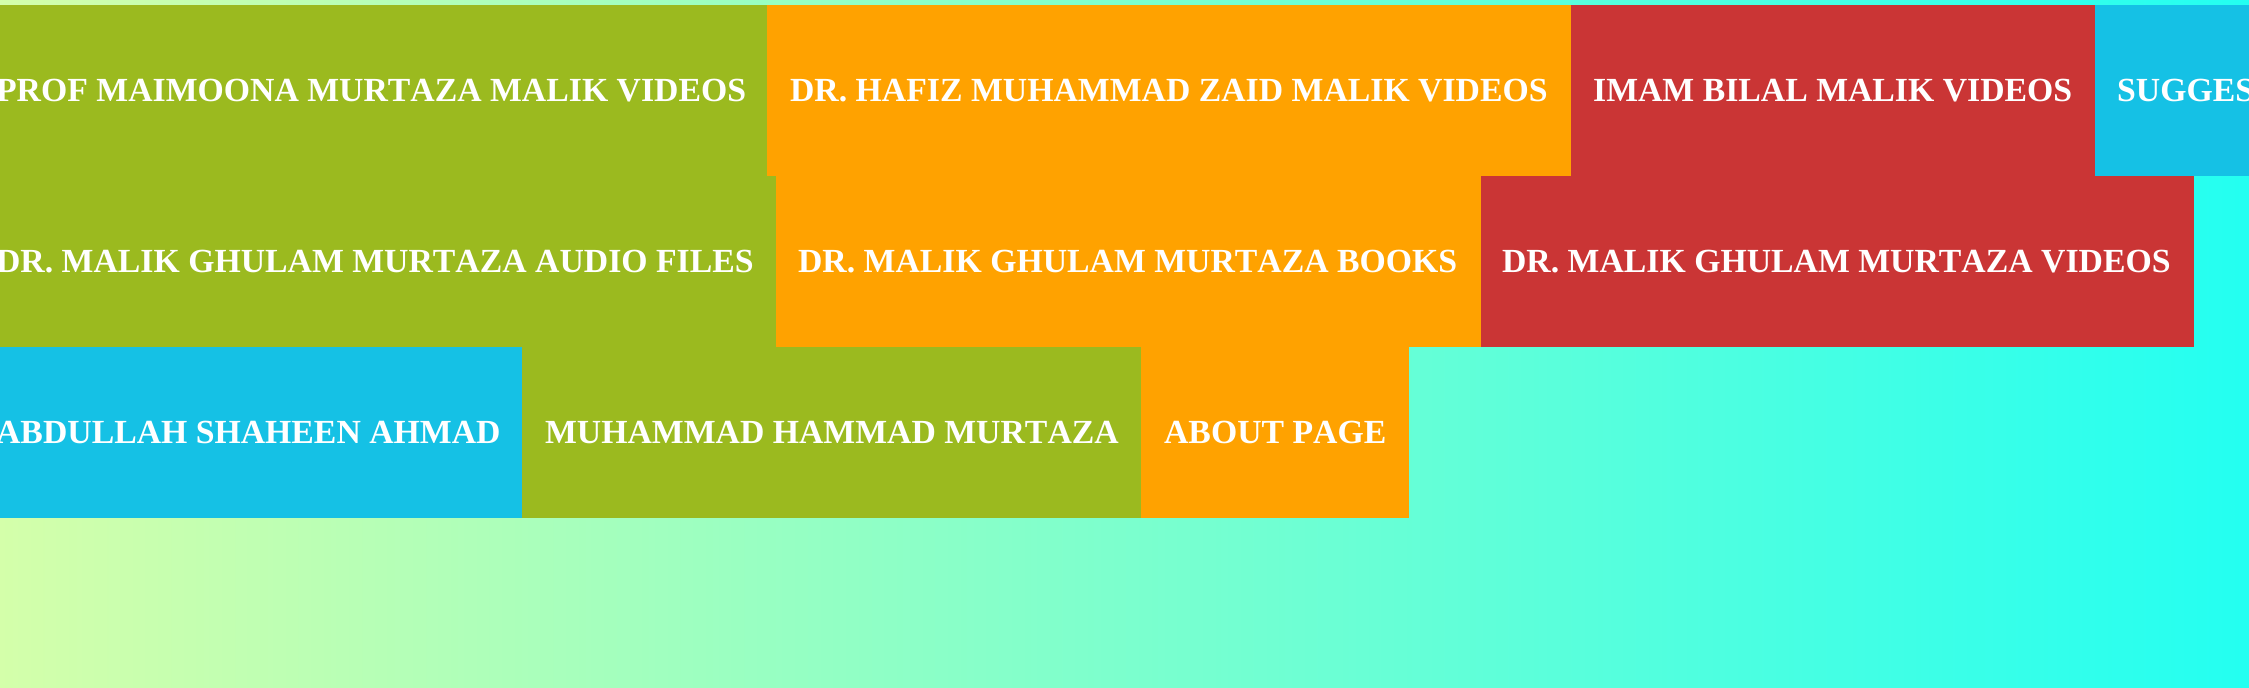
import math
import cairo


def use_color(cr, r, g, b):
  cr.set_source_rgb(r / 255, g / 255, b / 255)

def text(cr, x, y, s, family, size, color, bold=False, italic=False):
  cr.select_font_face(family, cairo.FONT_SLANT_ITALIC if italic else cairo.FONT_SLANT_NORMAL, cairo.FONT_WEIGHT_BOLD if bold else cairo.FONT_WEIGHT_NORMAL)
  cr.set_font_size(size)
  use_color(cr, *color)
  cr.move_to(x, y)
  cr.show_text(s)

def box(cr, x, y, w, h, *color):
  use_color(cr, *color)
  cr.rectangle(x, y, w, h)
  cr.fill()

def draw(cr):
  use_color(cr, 255, 255, 255)
  cr.paint()
  gradient = cairo.LinearGradient(0, 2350, 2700, 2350)
  gradient.add_color_stop_rgba(0, 0.831, 1, 0.667, 1)
  gradient.add_color_stop_rgba(1, 0, 1, 1, 1)
  cr.set_source(gradient)
  cr.rectangle(0, 0, 2249, 688)
  cr.fill()
  box(cr, 0, 5, 767, 171, 155, 186, 31)
  box(cr, 767, 5, 804, 171, 255, 162, 0)
  box(cr, 1571, 5, 524, 171, 202, 53, 53)
  box(cr, 2095, 5, 154, 171, 21, 193, 229)
  box(cr, 0, 176, 776, 171, 155, 186, 31)
  box(cr, 776, 176, 705, 171, 255, 162, 0)
  box(cr, 1481, 176, 713, 171, 202, 53, 53)
  box(cr, 0, 347, 522, 171, 21, 193, 229)
  box(cr, 522, 347, 619, 171, 155, 186, 31)
  box(cr, 1141, 347, 268, 171, 255, 162, 0)
  text(cr, -4, 101, "PROF MAIMOONA MURTAZA MALIK VIDEOS", "Liberation Serif", 33.75, (255, 255, 255), bold=True)
  text(cr, 790, 101, "DR. HAFIZ MUHAMMAD ZAID MALIK VIDEOS", "Liberation Serif", 33.75, (255, 255, 255), bold=True)
  text(cr, 1593, 101, "IMAM BILAL MALIK VIDEOS", "Liberation Serif", 33.75, (255, 255, 255), bold=True)
  text(cr, 2117, 101, "SUGGES", "Liberation Serif", 33.75, (255, 255, 255), bold=True)
  text(cr, -4, 272, "DR. MALIK GHULAM MURTAZA AUDIO FILES", "Liberation Serif", 33.75, (255, 255, 255), bold=True)
  text(cr, 798, 272, "DR. MALIK GHULAM MURTAZA BOOKS", "Liberation Serif", 33.75, (255, 255, 255), bold=True)
  text(cr, 1502, 272, "DR. MALIK GHULAM MURTAZA VIDEOS", "Liberation Serif", 33.75, (255, 255, 255), bold=True)
  text(cr, -4, 443, "ABDULLAH SHAHEEN AHMAD", "Liberation Serif", 33.75, (255, 255, 255), bold=True)
  text(cr, 545, 443, "MUHAMMAD HAMMAD MURTAZA", "Liberation Serif", 33.75, (255, 255, 255), bold=True)
  text(cr, 1164, 443, "ABOUT PAGE", "Liberation Serif", 33.75, (255, 255, 255), bold=True)


surface = cairo.ImageSurface(cairo.FORMAT_RGB24, 2249, 688)
cr = cairo.Context(surface)
options = cairo.FontOptions()
options.set_hint_metrics(cairo.HINT_METRICS_OFF)
options.set_hint_style(cairo.HINT_STYLE_NONE)
cr.set_font_options(options)
cr.set_miter_limit(4)
draw(cr)
surface.write_to_png("out.png")
